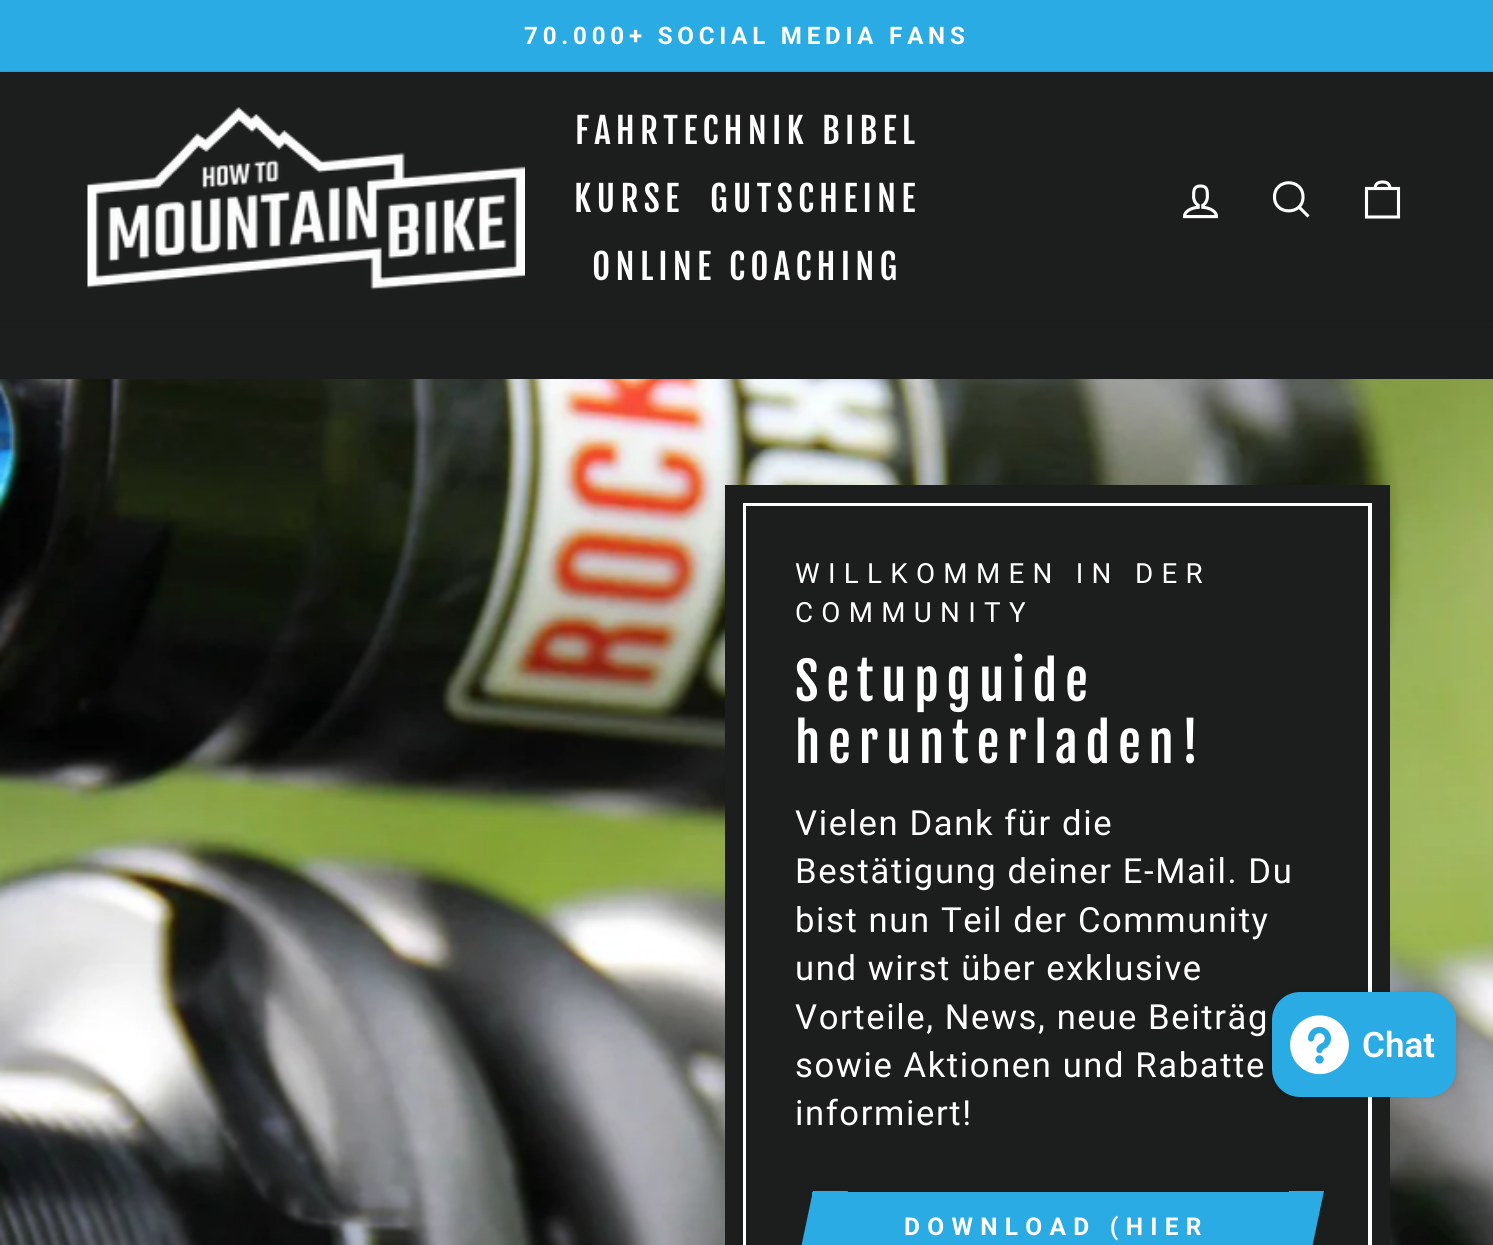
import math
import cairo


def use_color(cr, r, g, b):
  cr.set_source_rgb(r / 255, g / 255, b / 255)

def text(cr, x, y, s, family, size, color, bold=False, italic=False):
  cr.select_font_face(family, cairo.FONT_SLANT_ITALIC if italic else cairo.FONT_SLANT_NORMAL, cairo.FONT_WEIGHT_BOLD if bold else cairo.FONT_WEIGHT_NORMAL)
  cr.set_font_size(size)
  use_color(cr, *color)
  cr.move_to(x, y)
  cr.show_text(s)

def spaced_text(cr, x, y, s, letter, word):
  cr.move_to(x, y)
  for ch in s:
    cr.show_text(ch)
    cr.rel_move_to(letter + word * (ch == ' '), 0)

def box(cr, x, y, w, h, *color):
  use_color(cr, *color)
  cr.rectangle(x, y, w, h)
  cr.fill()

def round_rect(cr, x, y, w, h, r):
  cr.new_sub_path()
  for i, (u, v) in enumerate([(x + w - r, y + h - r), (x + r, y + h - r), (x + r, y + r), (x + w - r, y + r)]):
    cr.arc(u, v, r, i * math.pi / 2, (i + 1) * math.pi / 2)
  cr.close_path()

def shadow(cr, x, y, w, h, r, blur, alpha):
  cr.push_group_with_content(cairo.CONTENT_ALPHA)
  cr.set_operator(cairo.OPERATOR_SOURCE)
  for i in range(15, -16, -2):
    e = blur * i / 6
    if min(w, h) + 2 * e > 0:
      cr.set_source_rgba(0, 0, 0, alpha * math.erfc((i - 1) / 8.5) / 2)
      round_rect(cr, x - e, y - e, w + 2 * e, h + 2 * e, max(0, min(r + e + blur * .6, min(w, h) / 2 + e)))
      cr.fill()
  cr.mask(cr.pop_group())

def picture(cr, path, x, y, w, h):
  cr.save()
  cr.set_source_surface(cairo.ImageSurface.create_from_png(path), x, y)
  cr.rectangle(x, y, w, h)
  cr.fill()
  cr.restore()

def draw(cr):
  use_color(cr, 28, 29, 29)
  cr.paint()
  box(cr, 0, 0, 1493, 72, 42, 171, 227)
  cr.save()
  cr.set_fill_rule(cairo.FILL_RULE_EVEN_ODD)
  cr.new_path()
  cr.move_to(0, 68)
  cr.line_to(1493, 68)
  cr.line_to(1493, 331)
  cr.line_to(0, 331)
  cr.close_path()
  cr.move_to(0, 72)
  cr.line_to(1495, 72)
  cr.line_to(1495, 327)
  cr.line_to(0, 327)
  cr.close_path()
  cr.clip()
  use_color(cr, 0, 0, 0)
  shadow(cr, 0, 72, 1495, 255, 0, 1, 0.2)
  cr.restore()
  picture(cr, "img_01.png", 87, 107, 438, 183)
  picture(cr, "img_02.png", 1182, 184, 37, 35)
  cr.new_path()
  cr.move_to(1303, 197)
  cr.curve_to(1303, 215.5, 1274.5, 215.5, 1274.5, 197)
  cr.curve_to(1274.5, 178, 1303, 178, 1303, 197)
  cr.close_path()
  cr.move_to(1308.5, 216.5)
  cr.line_to(1299, 207)
  use_color(cr, 255, 255, 255)
  cr.set_line_width(3.1)
  cr.stroke()
  cr.new_path()
  cr.move_to(1366.5, 188.5)
  cr.line_to(1398.5, 188.5)
  cr.line_to(1398.5, 217)
  cr.line_to(1366.5, 217)
  cr.close_path()
  cr.move_to(1375, 189)
  cr.curve_to(1375, 183.5, 1378.5, 182, 1382.5, 182)
  cr.curve_to(1386.5, 182, 1390, 183.5, 1390, 189)
  cr.stroke()
  picture(cr, "img_03.png", 0, 379, 1493, 866)
  use_color(cr, 28, 29, 29)
  cr.rectangle(744, 504, 626, 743)
  cr.fill_preserve()
  use_color(cr, 255, 255, 255)
  cr.set_line_width(4)
  cr.stroke()
  cr.rectangle(734, 494, 647, 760)
  use_color(cr, 28, 29, 29)
  cr.set_line_width(18)
  cr.stroke()
  box(cr, 812, 1192, 477, 53, 42, 171, 227)
  cr.new_path()
  cr.move_to(813, 1191)
  cr.line_to(848, 1191)
  cr.line_to(825, 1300)
  cr.line_to(790, 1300)
  cr.close_path()
  cr.fill()
  cr.new_path()
  cr.move_to(1289, 1191)
  cr.line_to(1324, 1191)
  cr.line_to(1301, 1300)
  cr.line_to(1266, 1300)
  cr.close_path()
  cr.fill()
  use_color(cr, 0, 0, 0)
  shadow(cr, 1272, 992, 184, 105, 28, 4.5, 0.15)
  use_color(cr, 42, 171, 227)
  round_rect(cr, 1272, 992, 184, 105, 28)
  cr.fill()
  picture(cr, "img_04.png", 1290, 1015, 59, 60)
  cr.select_font_face("Roboto", cairo.FONT_SLANT_NORMAL, cairo.FONT_WEIGHT_BOLD)
  cr.set_font_size(24.1)
  use_color(cr, 255, 255, 255)
  spaced_text(cr, 524, 44, "70.000+ SOCIAL MEDIA FANS", 4.8, 0)
  cr.select_font_face("Fjalla One")
  cr.set_font_size(35)
  spaced_text(cr, 575, 144, "FAHRTECHNIK BIBEL", 5.25, 0)
  spaced_text(cr, 574, 212, "KURSE", 5.25, 0)
  spaced_text(cr, 710, 212, "GUTSCHEINE", 5.25, 0)
  spaced_text(cr, 592, 280, "ONLINE COACHING", 5.25, 0)
  cr.select_font_face("Roboto")
  cr.set_font_size(27.75)
  spaced_text(cr, 795, 583, "WILLKOMMEN IN DER", 8.3, 0)
  spaced_text(cr, 795, 622, "COMMUNITY", 8.3, 0)
  cr.select_font_face("Fjalla One")
  cr.set_font_size(51.25)
  spaced_text(cr, 795, 701, "Setupguide", 7.75, 0)
  spaced_text(cr, 795, 763, "herunterladen!", 7.75, 0)
  cr.select_font_face("Roboto")
  cr.set_font_size(34.6)
  spaced_text(cr, 795, 835, "Vielen Dank für die", 1.6, 0)
  spaced_text(cr, 795, 883, "Bestätigung deiner E-Mail. Du", 1.6, 0)
  spaced_text(cr, 795, 932, "bist nun Teil der Community", 1.6, 0)
  spaced_text(cr, 795, 980, "und wirst über exklusive", 1.6, 0)
  spaced_text(cr, 795, 1029, "Vorteile, News, neue Beiträg", 1.6, 0)
  spaced_text(cr, 795, 1077, "sowie Aktionen und Rabatte", 1.6, 0)
  spaced_text(cr, 795, 1125, "informiert!", 1.6, 0)
  cr.select_font_face("Roboto", cairo.FONT_SLANT_NORMAL, cairo.FONT_WEIGHT_BOLD)
  cr.set_font_size(24.5)
  spaced_text(cr, 904, 1235, "DOWNLOAD (HIER", 7.3, 0)
  text(cr, 1362, 1057, "Chat", "Roboto SemiBold", 35, (255, 255, 255))


surface = cairo.ImageSurface(cairo.FORMAT_RGB24, 1493, 1245)
cr = cairo.Context(surface)
options = cairo.FontOptions()
options.set_hint_metrics(cairo.HINT_METRICS_OFF)
options.set_hint_style(cairo.HINT_STYLE_NONE)
cr.set_font_options(options)
cr.set_miter_limit(4)
draw(cr)
surface.write_to_png("out.png")
